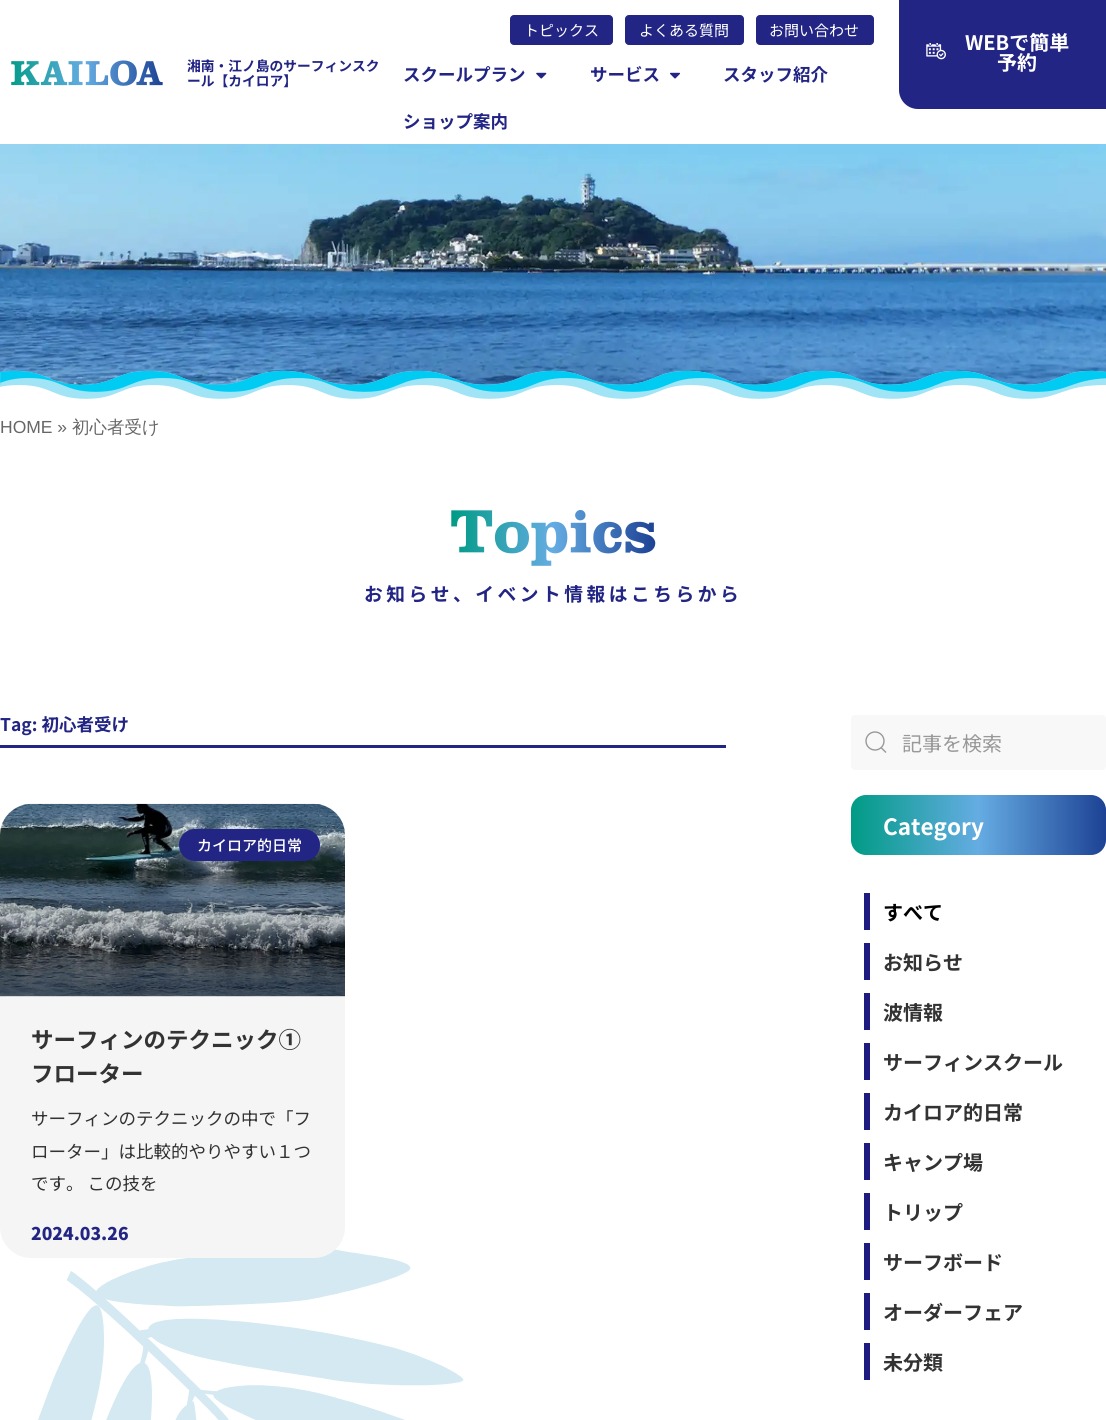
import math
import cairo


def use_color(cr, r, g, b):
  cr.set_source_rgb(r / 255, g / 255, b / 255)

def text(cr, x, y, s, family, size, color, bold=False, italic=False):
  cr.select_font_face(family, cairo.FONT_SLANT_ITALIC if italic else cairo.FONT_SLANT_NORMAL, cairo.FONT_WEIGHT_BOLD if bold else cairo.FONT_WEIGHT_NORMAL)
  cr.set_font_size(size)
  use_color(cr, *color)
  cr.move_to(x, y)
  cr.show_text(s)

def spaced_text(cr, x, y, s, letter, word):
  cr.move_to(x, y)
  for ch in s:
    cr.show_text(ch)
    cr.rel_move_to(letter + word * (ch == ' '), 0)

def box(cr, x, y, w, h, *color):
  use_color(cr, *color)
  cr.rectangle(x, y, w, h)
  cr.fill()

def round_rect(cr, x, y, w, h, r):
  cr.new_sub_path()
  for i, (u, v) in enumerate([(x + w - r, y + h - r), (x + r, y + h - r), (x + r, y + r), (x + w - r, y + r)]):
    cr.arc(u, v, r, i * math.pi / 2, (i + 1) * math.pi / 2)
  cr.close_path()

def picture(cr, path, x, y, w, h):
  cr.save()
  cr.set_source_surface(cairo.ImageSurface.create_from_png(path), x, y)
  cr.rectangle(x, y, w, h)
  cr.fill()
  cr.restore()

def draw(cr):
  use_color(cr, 255, 255, 255)
  cr.paint()
  picture(cr, "img_01.png", 38, 1249, 426, 171)
  picture(cr, "img_02.png", 11, 60, 152, 26)
  use_color(cr, 35, 37, 132)
  round_rect(cr, 510.5, 15.5, 102, 29, 3.5)
  cr.fill_preserve()
  cr.set_line_width(1)
  cr.stroke()
  round_rect(cr, 625.5, 15.5, 118, 29, 3.5)
  cr.fill_preserve()
  cr.stroke()
  round_rect(cr, 756.5, 15.5, 117, 29, 3.5)
  cr.fill_preserve()
  cr.stroke()
  picture(cr, "img_03.png", 536, 72, 11, 7)
  picture(cr, "img_04.png", 669, 72, 12, 7)
  cr.new_path()
  cr.move_to(899, 0)
  cr.line_to(1106, 0)
  cr.line_to(1106, 109)
  cr.line_to(918, 109)
  cr.curve_to(907.5, 109, 899, 100.5, 899, 90)
  cr.close_path()
  cr.fill()
  picture(cr, "img_05.png", 926, 43, 20, 17)
  picture(cr, "img_06.png", 0, 144, 1106, 241)
  picture(cr, "img_07.png", 0, 370, 1106, 70)
  picture(cr, "img_08.png", 451, 510, 205, 56)
  box(cr, 0, 745, 726, 3, 35, 37, 132)
  use_color(cr, 245, 245, 245)
  round_rect(cr, 0, 804, 345, 454, 31)
  cr.fill()
  picture(cr, "img_09.png", 0, 803, 345, 194)
  gradient = cairo.LinearGradient(173, 996, 173, 804)
  gradient.add_color_stop_rgba(0, 0, 0, 0, 0.35)
  gradient.add_color_stop_rgba(0.75, 0, 0, 0, 0)
  cr.set_source(gradient)
  cr.rectangle(0, 861, 345, 135)
  cr.fill()
  use_color(cr, 35, 37, 132)
  round_rect(cr, 179, 829, 141, 32, 16)
  cr.fill()
  use_color(cr, 248, 248, 248)
  round_rect(cr, 851, 715, 255, 55, 4)
  cr.fill()
  cr.arc(875, 741, 9, 0, 2 * math.pi)
  use_color(cr, 153, 153, 153)
  cr.set_line_width(1.4)
  cr.stroke()
  cr.new_path()
  cr.move_to(881, 747.5)
  cr.line_to(886, 752.5)
  cr.close_path()
  cr.stroke()
  gradient = cairo.LinearGradient(851, 825, 1106, 825)
  gradient.add_color_stop_rgba(0, 0, 0.608, 0.522, 1)
  gradient.add_color_stop_rgba(0.5, 0.396, 0.675, 0.89, 1)
  gradient.add_color_stop_rgba(1, 0.114, 0.259, 0.58, 1)
  cr.set_source(gradient)
  round_rect(cr, 851, 795, 255, 60, 15)
  cr.fill()
  box(cr, 864, 893, 6, 37, 29, 27, 127)
  box(cr, 864, 943, 6, 37, 29, 27, 127)
  box(cr, 864, 993, 6, 37, 29, 27, 127)
  box(cr, 864, 1043, 6, 37, 29, 27, 127)
  box(cr, 864, 1093, 6, 37, 29, 27, 127)
  box(cr, 864, 1143, 6, 37, 29, 27, 127)
  box(cr, 864, 1193, 6, 37, 29, 27, 127)
  box(cr, 864, 1243, 6, 37, 29, 27, 127)
  box(cr, 864, 1293, 6, 37, 29, 27, 127)
  box(cr, 864, 1343, 6, 37, 29, 27, 127)
  text(cr, 187, 71, "湘南・江ノ島のサーフィンスク", "Noto Sans JP", 13.75, (35, 37, 132), bold=True)
  text(cr, 187, 86, "ール【カイロア】", "Noto Sans JP", 13.75, (35, 37, 132), bold=True)
  text(cr, 524, 36, "トピックス", "Noto Sans JP", 15, (255, 255, 255))
  text(cr, 639, 36, "よくある質問", "Noto Sans JP", 15, (255, 255, 255))
  text(cr, 769, 36, "お問い合わせ", "Noto Sans JP", 15, (255, 255, 255))
  text(cr, 403, 81, "スクールプラン", "Noto Sans JP", 17.5, (35, 37, 132), bold=True)
  text(cr, 590, 81, "サービス", "Noto Sans JP", 17.5, (35, 37, 132), bold=True)
  text(cr, 723, 81, "スタッフ紹介", "Noto Sans JP", 17.5, (35, 37, 132), bold=True)
  text(cr, 403, 128, "ショップ案内", "Noto Sans JP", 17.5, (35, 37, 132), bold=True)
  text(cr, 965, 50, "WEBで簡単", "Noto Sans JP", 20, (255, 255, 255), bold=True)
  text(cr, 997, 70, "予約", "Noto Sans JP", 20, (255, 255, 255), bold=True)
  text(cr, 0, 433, "HOME »", "Liberation Sans", 17.5, (102, 102, 102))
  text(cr, 72, 433, "初心者受け", "WenQuanYi Zen Hei Medium", 17.5, (102, 102, 102))
  cr.select_font_face("Noto Sans JP", cairo.FONT_SLANT_NORMAL, cairo.FONT_WEIGHT_BOLD)
  cr.set_font_size(18.75)
  use_color(cr, 35, 37, 132)
  spaced_text(cr, 364, 601, "お知らせ、イベント情報はこちらから", 3.5, 0)
  text(cr, 0, 731, "Tag: 初心者受け", "Noto Sans JP", 17.5, (35, 37, 132), bold=True)
  text(cr, 197, 851, "カイロア的日常", "Noto Sans JP Medium", 15, (255, 255, 255))
  text(cr, 31, 1048, "サーフィンのテクニック①", "Noto Sans JP", 22.5, (51, 51, 51), bold=True)
  text(cr, 31, 1082, "フローター", "Noto Sans JP", 22.5, (51, 51, 51), bold=True)
  text(cr, 31, 1125, "サーフィンのテクニックの中で「フ", "Noto Sans JP", 17.5, (51, 51, 51))
  text(cr, 31, 1158, "ローター」は比較的やりやすい１つ", "Noto Sans JP", 17.5, (51, 51, 51))
  text(cr, 31, 1190, "です。 この技を", "Noto Sans JP", 17.5, (51, 51, 51))
  text(cr, 31, 1240, "2024.03.26", "Noto Sans JP Black", 17.5, (35, 37, 132))
  text(cr, 902, 751, "記事を検索", "Noto Sans JP", 20, (153, 153, 153))
  text(cr, 883, 835, "Category", "Noto Sans JP", 22.5, (255, 255, 255), bold=True)
  text(cr, 883, 920, "すべて", "Noto Sans JP", 20, (0, 0, 0), bold=True)
  text(cr, 883, 970, "お知らせ", "Noto Sans JP", 20, (51, 51, 51), bold=True)
  text(cr, 883, 1020, "波情報", "Noto Sans JP", 20, (51, 51, 51), bold=True)
  text(cr, 883, 1070, "サーフィンスクール", "Noto Sans JP", 20, (51, 51, 51), bold=True)
  text(cr, 883, 1120, "カイロア的日常", "Noto Sans JP", 20, (51, 51, 51), bold=True)
  text(cr, 883, 1170, "キャンプ場", "Noto Sans JP", 20, (51, 51, 51), bold=True)
  text(cr, 883, 1220, "トリップ", "Noto Sans JP", 20, (51, 51, 51), bold=True)
  text(cr, 883, 1270, "サーフボード", "Noto Sans JP", 20, (51, 51, 51), bold=True)
  text(cr, 883, 1320, "オーダーフェア", "Noto Sans JP", 20, (51, 51, 51), bold=True)
  text(cr, 883, 1370, "未分類", "Noto Sans JP", 20, (51, 51, 51), bold=True)


surface = cairo.ImageSurface(cairo.FORMAT_RGB24, 1106, 1420)
cr = cairo.Context(surface)
options = cairo.FontOptions()
options.set_hint_metrics(cairo.HINT_METRICS_OFF)
options.set_hint_style(cairo.HINT_STYLE_NONE)
cr.set_font_options(options)
cr.set_miter_limit(4)
draw(cr)
surface.write_to_png("out.png")
